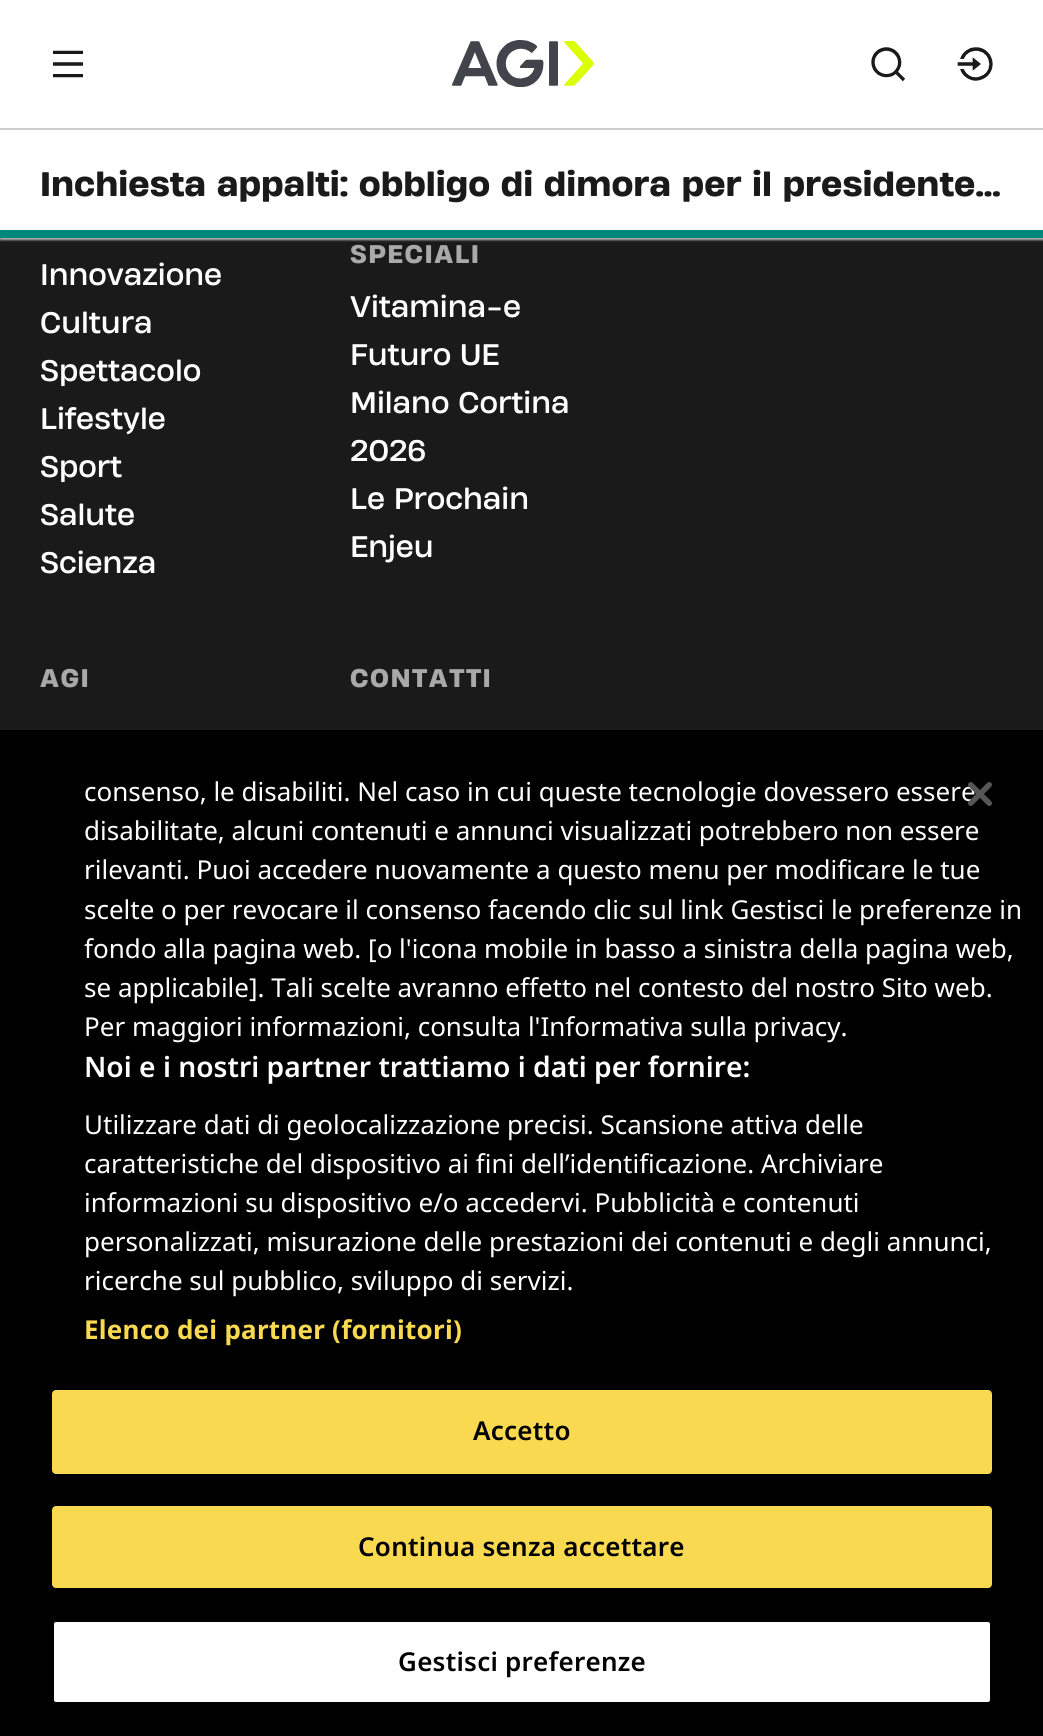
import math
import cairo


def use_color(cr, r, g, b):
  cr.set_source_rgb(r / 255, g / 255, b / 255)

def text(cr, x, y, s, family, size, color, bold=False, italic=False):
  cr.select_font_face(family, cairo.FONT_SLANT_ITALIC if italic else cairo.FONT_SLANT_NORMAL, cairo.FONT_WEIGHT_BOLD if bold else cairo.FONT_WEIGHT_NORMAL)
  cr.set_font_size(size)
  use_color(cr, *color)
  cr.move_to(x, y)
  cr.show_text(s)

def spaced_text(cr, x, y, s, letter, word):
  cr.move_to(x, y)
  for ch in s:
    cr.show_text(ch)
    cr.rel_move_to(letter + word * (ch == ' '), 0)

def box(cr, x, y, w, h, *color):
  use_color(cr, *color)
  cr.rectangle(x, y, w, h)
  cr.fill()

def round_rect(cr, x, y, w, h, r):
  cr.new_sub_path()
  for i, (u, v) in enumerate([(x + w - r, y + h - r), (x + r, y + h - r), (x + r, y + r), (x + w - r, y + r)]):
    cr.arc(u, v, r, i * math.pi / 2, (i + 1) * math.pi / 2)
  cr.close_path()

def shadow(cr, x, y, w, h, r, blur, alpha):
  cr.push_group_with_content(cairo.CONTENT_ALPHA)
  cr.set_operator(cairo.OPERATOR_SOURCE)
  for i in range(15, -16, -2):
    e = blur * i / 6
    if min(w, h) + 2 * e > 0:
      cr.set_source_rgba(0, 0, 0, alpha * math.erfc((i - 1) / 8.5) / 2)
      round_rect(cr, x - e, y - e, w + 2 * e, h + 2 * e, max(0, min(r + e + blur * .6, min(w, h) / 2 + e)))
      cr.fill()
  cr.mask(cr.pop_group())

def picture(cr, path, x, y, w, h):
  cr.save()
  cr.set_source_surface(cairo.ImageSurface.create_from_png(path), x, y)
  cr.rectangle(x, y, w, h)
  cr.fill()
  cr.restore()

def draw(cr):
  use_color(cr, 26, 26, 26)
  cr.paint()
  use_color(cr, 179, 179, 179)
  shadow(cr, 0, 2, 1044, 238, 0, 1, 1)
  box(cr, 0, 0, 1043, 230, 255, 255, 255)
  picture(cr, "img_01.png", 53, 50, 30, 28)
  picture(cr, "img_02.png", 452, 40, 142, 47)
  picture(cr, "img_03.png", 871, 47, 34, 35)
  picture(cr, "img_04.png", 957, 47, 36, 34)
  box(cr, 0, 128, 1043, 2, 206, 206, 206)
  box(cr, 0, 230, 1043, 8, 0, 137, 123)
  box(cr, 0, 730, 1043, 1006, 0, 0, 0)
  use_color(cr, 249, 217, 79)
  round_rect(cr, 53, 1391, 938, 82, 3)
  cr.fill_preserve()
  cr.stroke()
  round_rect(cr, 53, 1507, 938, 80, 3)
  cr.fill_preserve()
  cr.stroke()
  use_color(cr, 255, 255, 255)
  round_rect(cr, 53, 1621, 938, 82, 3)
  cr.fill_preserve()
  use_color(cr, 0, 0, 0)
  cr.stroke()
  text(cr, 40, 196, "Inchiesta appalti: obbligo di dimora per il presidente…", "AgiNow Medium", 32, (26, 26, 26))
  text(cr, 40, 285, "Innovazione", "AgiNow", 28, (255, 255, 255))
  text(cr, 40, 333, "Cultura", "AgiNow", 28, (255, 255, 255))
  text(cr, 40, 381, "Spettacolo", "AgiNow", 28, (255, 255, 255))
  text(cr, 40, 429, "Lifestyle", "AgiNow", 28, (255, 255, 255))
  text(cr, 40, 477, "Sport", "AgiNow", 28, (255, 255, 255))
  text(cr, 40, 525, "Salute", "AgiNow", 28, (255, 255, 255))
  text(cr, 40, 573, "Scienza", "AgiNow", 28, (255, 255, 255))
  cr.select_font_face("AgiNow Medium")
  cr.set_font_size(24)
  use_color(cr, 169, 169, 169)
  spaced_text(cr, 350, 263, "SPECIALI", 1.5, 0)
  text(cr, 350, 317, "Vitamina-e", "AgiNow", 28, (255, 255, 255))
  text(cr, 350, 365, "Futuro UE", "AgiNow", 28, (255, 255, 255))
  text(cr, 350, 413, "Milano Cortina", "AgiNow", 28, (255, 255, 255))
  text(cr, 350, 461, "2026", "AgiNow", 28, (255, 255, 255))
  text(cr, 350, 509, "Le Prochain", "AgiNow", 28, (255, 255, 255))
  text(cr, 350, 557, "Enjeu", "AgiNow", 28, (255, 255, 255))
  cr.select_font_face("AgiNow Medium")
  cr.set_font_size(24)
  use_color(cr, 169, 169, 169)
  spaced_text(cr, 40, 687, "AGI", 1.5, 0)
  spaced_text(cr, 350, 687, "CONTATTI", 1.5, 0)
  text(cr, 84, 801, "consenso, le disabiliti. Nel caso in cui queste tecnologie dovessero essere", "Noto Sans", 26, (255, 255, 255))
  text(cr, 84, 840, "disabilitate, alcuni contenuti e annunci visualizzati potrebbero non essere", "Noto Sans", 26, (255, 255, 255))
  text(cr, 84, 879, "rilevanti. Puoi accedere nuovamente a questo menu per modificare le tue", "Noto Sans", 26, (255, 255, 255))
  text(cr, 84, 919, "scelte o per revocare il consenso facendo clic sul link Gestisci le preferenze in", "Noto Sans", 26, (255, 255, 255))
  text(cr, 84, 958, "fondo alla pagina web. [o l'icona mobile in basso a sinistra della pagina web,", "Noto Sans", 26, (255, 255, 255))
  text(cr, 84, 997, "se applicabile]. Tali scelte avranno effetto nel contesto del nostro Sito web.", "Noto Sans", 26, (255, 255, 255))
  text(cr, 84, 1036, "Per maggiori informazioni, consulta l'Informativa sulla privacy.", "Noto Sans", 26, (255, 255, 255))
  text(cr, 84, 1077, "Noi e i nostri partner trattiamo i dati per fornire:", "Noto Sans SemiBold", 28.2, (255, 255, 255))
  text(cr, 84, 1134, "Utilizzare dati di geolocalizzazione precisi. Scansione attiva delle", "Noto Sans", 26, (255, 255, 255))
  text(cr, 84, 1173, "caratteristiche del dispositivo ai fini dell’identificazione. Archiviare", "Noto Sans", 26, (255, 255, 255))
  text(cr, 84, 1212, "informazioni su dispositivo e/o accedervi. Pubblicità e contenuti", "Noto Sans", 26, (255, 255, 255))
  text(cr, 84, 1251, "personalizzati, misurazione delle prestazioni dei contenuti e degli annunci,", "Noto Sans", 26, (255, 255, 255))
  text(cr, 84, 1290, "ricerche sul pubblico, sviluppo di servizi.", "Noto Sans", 26, (255, 255, 255))
  cr.select_font_face("Noto Sans", cairo.FONT_SLANT_NORMAL, cairo.FONT_WEIGHT_BOLD)
  use_color(cr, 249, 217, 79)
  spaced_text(cr, 84, 1339, "Elenco dei partner (fornitori)", 0.25, 0)
  cr.select_font_face("Noto Sans SemiBold")
  use_color(cr, 0, 0, 0)
  spaced_text(cr, 473, 1440, "Accetto", 0.25, 0)
  spaced_text(cr, 358, 1556, "Continua senza accettare", 0.25, 0)
  spaced_text(cr, 398, 1671, "Gestisci preferenze", 0.25, 0)
  picture(cr, "img_05.png", 968, 782, 24, 24)


surface = cairo.ImageSurface(cairo.FORMAT_RGB24, 1043, 1736)
cr = cairo.Context(surface)
options = cairo.FontOptions()
options.set_hint_metrics(cairo.HINT_METRICS_OFF)
options.set_hint_style(cairo.HINT_STYLE_NONE)
cr.set_font_options(options)
cr.set_miter_limit(4)
draw(cr)
surface.write_to_png("out.png")
